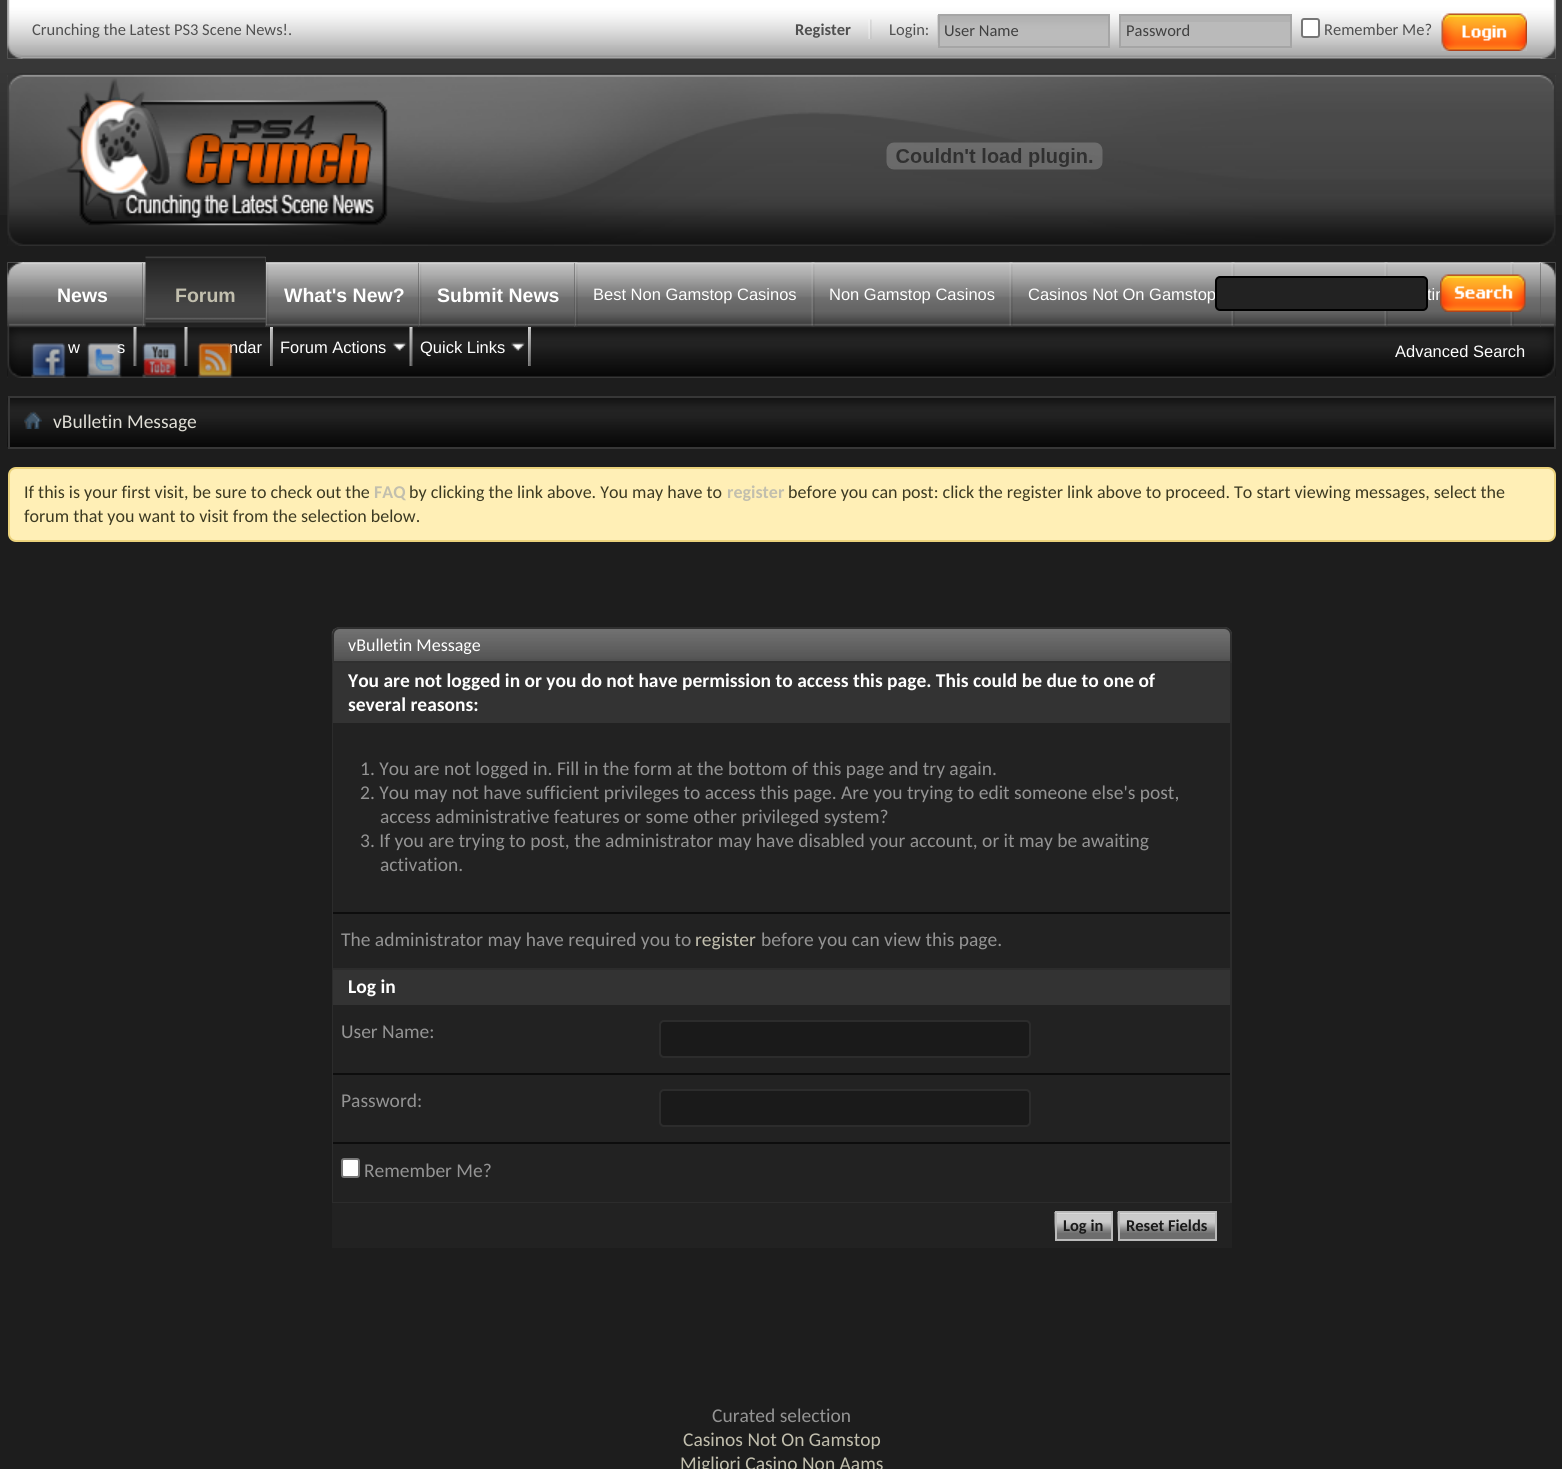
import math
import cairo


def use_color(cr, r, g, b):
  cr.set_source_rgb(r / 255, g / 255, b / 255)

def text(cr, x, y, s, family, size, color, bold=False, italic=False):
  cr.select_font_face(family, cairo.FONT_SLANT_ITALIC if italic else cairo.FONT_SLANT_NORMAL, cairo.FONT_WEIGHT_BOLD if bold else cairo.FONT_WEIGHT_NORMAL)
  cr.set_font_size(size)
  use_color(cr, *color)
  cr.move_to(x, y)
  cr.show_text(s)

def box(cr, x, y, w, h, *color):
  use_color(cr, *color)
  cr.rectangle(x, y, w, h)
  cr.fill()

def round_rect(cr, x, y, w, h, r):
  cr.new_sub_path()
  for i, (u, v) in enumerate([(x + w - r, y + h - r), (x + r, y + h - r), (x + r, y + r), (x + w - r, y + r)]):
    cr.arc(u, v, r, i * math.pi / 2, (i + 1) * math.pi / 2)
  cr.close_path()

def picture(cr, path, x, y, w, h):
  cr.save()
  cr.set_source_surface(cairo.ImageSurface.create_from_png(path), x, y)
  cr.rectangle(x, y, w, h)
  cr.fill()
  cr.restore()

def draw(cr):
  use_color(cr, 29, 29, 29)
  cr.paint()
  picture(cr, "img_01.png", 0, 0, 1562, 215)
  picture(cr, "img_02.png", 7, 0, 1549, 59)
  picture(cr, "img_03.png", 7, 0, 16, 59)
  picture(cr, "img_04.png", 1540, 0, 16, 59)
  picture(cr, "img_05.png", 868, 19, 4, 20)
  box(cr, 940, 43, 168, 3, 186, 186, 186)
  picture(cr, "img_06.png", 937, 15, 171, 28)
  cr.rectangle(939, 15, 170, 32)
  use_color(cr, 165, 165, 165)
  cr.stroke()
  box(cr, 1121, 22, 169, 24, 186, 186, 186)
  box(cr, 1119, 16, 173, 6, 178, 178, 178)
  cr.rectangle(1120, 15, 171, 32)
  use_color(cr, 165, 165, 165)
  cr.stroke()
  use_color(cr, 255, 255, 255)
  round_rect(cr, 1302, 19, 17, 18, 2)
  cr.fill_preserve()
  use_color(cr, 118, 118, 118)
  cr.stroke()
  picture(cr, "img_07.png", 1441, 13, 86, 38)
  picture(cr, "img_08.png", 7, 75, 1549, 171)
  picture(cr, "img_09.png", 7, 73, 1290, 173)
  picture(cr, "img_10.png", 1540, 73, 16, 173)
  picture(cr, "img_11.png", 66, 78, 322, 148)
  picture(cr, "img_12.png", 886, 142, 217, 28)
  picture(cr, "img_13.png", 7, 262, 1549, 116)
  picture(cr, "img_14.png", 7, 262, 17, 116)
  picture(cr, "img_15.png", 1539, 262, 17, 116)
  box(cr, 1540, 263, 1, 64, 80, 80, 80)
  picture(cr, "img_16.png", 22, 262, 1519, 65)
  picture(cr, "img_17.png", 142, 262, 4, 65)
  box(cr, 142, 263, 1, 64, 80, 80, 80)
  picture(cr, "img_18.png", 22, 262, 121, 65)
  picture(cr, "img_19.png", 266, 262, 3, 65)
  box(cr, 265, 257, 1, 70, 80, 80, 80)
  picture(cr, "img_20.png", 145, 256, 121, 71)
  picture(cr, "img_17.png", 418, 262, 4, 65)
  box(cr, 418, 263, 1, 64, 80, 80, 80)
  picture(cr, "img_21.png", 268, 262, 151, 65)
  picture(cr, "img_17.png", 574, 262, 4, 65)
  box(cr, 574, 263, 1, 64, 80, 80, 80)
  picture(cr, "img_22.png", 421, 262, 154, 65)
  picture(cr, "img_17.png", 811, 262, 4, 65)
  picture(cr, "img_17.png", 1009, 262, 4, 65)
  picture(cr, "img_17.png", 1231, 262, 4, 65)
  picture(cr, "img_17.png", 1384, 262, 4, 65)
  picture(cr, "img_17.png", 1510, 262, 4, 65)
  picture(cr, "img_23.png", 31, 343, 35, 35)
  picture(cr, "img_24.png", 133, 327, 4, 39)
  picture(cr, "img_24.png", 184, 327, 4, 39)
  picture(cr, "img_25.png", 270, 327, 3, 39)
  picture(cr, "img_24.png", 409, 327, 4, 39)
  picture(cr, "img_26.png", 392, 342, 15, 9)
  picture(cr, "img_25.png", 528, 327, 3, 39)
  picture(cr, "img_27.png", 511, 342, 14, 9)
  picture(cr, "img_29.png", 142, 343, 35, 35)
  picture(cr, "img_32.png", 7, 397, 1547, 50)
  cr.rectangle(9, 397, 1546, 51)
  use_color(cr, 55, 55, 55)
  cr.stroke()
  picture(cr, "img_33.png", 24, 411, 18, 18)
  use_color(cr, 255, 239, 182)
  round_rect(cr, 9, 468, 1546, 73, 7)
  cr.fill_preserve()
  use_color(cr, 235, 210, 123)
  cr.stroke()
  use_color(cr, 81, 81, 81)
  cr.new_path()
  cr.move_to(340, 627)
  cr.line_to(1224, 627)
  cr.curve_to(1228.5, 627, 1232, 630.5, 1232, 635)
  cr.line_to(1232, 663)
  cr.line_to(332, 663)
  cr.line_to(332, 635)
  cr.curve_to(332, 630.5, 335.5, 627, 340, 627)
  cr.close_path()
  cr.fill()
  picture(cr, "img_34.png", 331, 628, 901, 31)
  cr.new_path()
  cr.move_to(340, 628)
  cr.line_to(1224, 628)
  cr.curve_to(1228, 628, 1231, 631, 1231, 635)
  cr.line_to(1231, 662)
  cr.line_to(333, 662)
  cr.line_to(333, 635)
  cr.curve_to(333, 631, 336, 628, 340, 628)
  cr.close_path()
  use_color(cr, 48, 48, 48)
  cr.stroke()
  box(cr, 1230, 663, 2, 540, 44, 44, 44)
  box(cr, 332, 1202, 900, 1, 44, 44, 44)
  box(cr, 332, 663, 2, 540, 44, 44, 44)
  box(cr, 333, 663, 897, 60, 51, 51, 51)
  box(cr, 333, 723, 897, 189, 34, 34, 34)
  box(cr, 333, 914, 897, 54, 34, 34, 34)
  box(cr, 333, 912, 897, 2, 13, 13, 13)
  box(cr, 333, 970, 897, 35, 51, 51, 51)
  box(cr, 333, 968, 897, 2, 44, 44, 44)
  box(cr, 333, 1005, 897, 68, 34, 34, 34)
  use_color(cr, 26, 26, 26)
  round_rect(cr, 660, 1021, 370, 36, 4)
  cr.fill_preserve()
  use_color(cr, 44, 44, 44)
  cr.stroke()
  box(cr, 333, 1075, 897, 67, 34, 34, 34)
  box(cr, 333, 1073, 897, 2, 13, 13, 13)
  use_color(cr, 26, 26, 26)
  round_rect(cr, 660, 1090, 370, 36, 4)
  cr.fill_preserve()
  use_color(cr, 44, 44, 44)
  cr.stroke()
  box(cr, 333, 1144, 897, 58, 34, 34, 34)
  box(cr, 333, 1142, 897, 2, 13, 13, 13)
  use_color(cr, 255, 255, 255)
  round_rect(cr, 342, 1159, 17, 18, 2)
  cr.fill_preserve()
  use_color(cr, 118, 118, 118)
  cr.stroke()
  box(cr, 332, 1203, 900, 45, 34, 34, 34)
  box(cr, 1057, 1213, 54, 26, 109, 109, 109)
  picture(cr, "img_35.png", 1054, 1212, 57, 21)
  cr.rectangle(1056, 1212, 56, 28)
  use_color(cr, 186, 186, 186)
  cr.stroke()
  box(cr, 1120, 1213, 95, 26, 109, 109, 109)
  picture(cr, "img_36.png", 1117, 1212, 98, 21)
  cr.rectangle(1119, 1212, 97, 28)
  use_color(cr, 186, 186, 186)
  cr.stroke()
  text(cr, 32, 35, "Crunching the Latest PS3 Scene News!.", "Carlito", 16.5, (80, 80, 80))
  text(cr, 795, 35, "Register", "Carlito", 16.5, (80, 80, 80), bold=True)
  text(cr, 889, 35, "Login:", "Carlito", 16.5, (80, 80, 80))
  text(cr, 944, 36, "User Name", "Carlito", 16.5, (64, 64, 64))
  text(cr, 1126, 36, "Password", "Carlito", 16.5, (64, 64, 64))
  text(cr, 1324, 35, "Remember Me?", "Carlito", 16.5, (80, 80, 80))
  text(cr, 57, 302, "News", "Liberation Sans", 19.5, (255, 255, 255), bold=True)
  text(cr, 175, 302, "Forum", "Liberation Sans", 19.5, (194, 191, 174), bold=True)
  text(cr, 284, 302, "What's New?", "Liberation Sans", 19.5, (255, 255, 255), bold=True)
  text(cr, 437, 302, "Submit News", "Liberation Sans", 19.5, (255, 255, 255), bold=True)
  text(cr, 593, 300, "Best Non Gamstop Casinos", "Liberation Sans", 16.5, (255, 255, 255))
  text(cr, 829, 300, "Non Gamstop Casinos", "Liberation Sans", 16.5, (255, 255, 255))
  text(cr, 1028, 300, "Casinos Not On Gamstop", "Liberation Sans", 16.5, (255, 255, 255))
  text(cr, 1427, 300, "tin", "Liberation Sans", 16.5, (255, 255, 255))
  text(cr, 68, 353, "w", "Liberation Sans", 16.5, (255, 255, 255))
  text(cr, 117, 353, "s", "Liberation Sans", 16.5, (255, 255, 255))
  text(cr, 229, 353, "ndar", "Liberation Sans", 16.5, (255, 255, 255))
  text(cr, 280, 353, "Forum Actions", "Liberation Sans", 16.5, (255, 255, 255))
  text(cr, 420, 353, "Quick Links", "Liberation Sans", 16.5, (255, 255, 255))
  picture(cr, "img_28.png", 86, 343, 36, 35)
  picture(cr, "img_30.png", 197, 343, 36, 35)
  use_color(cr, 34, 34, 34)
  round_rect(cr, 1216, 277, 211, 33, 4)
  cr.fill_preserve()
  use_color(cr, 0, 0, 0)
  cr.stroke()
  picture(cr, "img_31.png", 1440, 274, 86, 38)
  text(cr, 1395, 357, "Advanced Search", "Liberation Sans", 16.5, (255, 255, 255))
  text(cr, 53, 428, "vBulletin Message", "Carlito", 19.5, (224, 222, 214))
  text(cr, 24, 498, "If this is your first visit, be sure to check out the", "Carlito", 18, (60, 58, 34))
  text(cr, 374, 498, "FAQ", "Carlito", 18, (194, 191, 174), bold=True)
  text(cr, 409, 498, "by clicking the link above. You may have to", "Carlito", 18, (60, 58, 34))
  text(cr, 727, 498, "register", "Carlito", 18, (194, 191, 174), bold=True)
  text(cr, 788, 498, "before you can post: click the register link above to proceed. To start viewing messages, select the", "Carlito", 18, (60, 58, 34))
  text(cr, 24, 522, "forum that you want to visit from the selection below.", "Carlito", 18, (60, 58, 34))
  text(cr, 348, 651, "vBulletin Message", "Carlito", 18, (255, 255, 255))
  text(cr, 348, 687, "You are not logged in or you do not have permission to access this page. This could be due to one of", "Carlito", 19.5, (255, 255, 255), bold=True)
  text(cr, 348, 711, "several reasons:", "Carlito", 19.5, (255, 255, 255), bold=True)
  text(cr, 360, 775, "1. You are not logged in. Fill in the form at the bottom of this page and try again.", "Carlito", 19.5, (148, 148, 148))
  text(cr, 360, 799, "2. You may not have sufficient privileges to access this page. Are you trying to edit someone else's post,", "Carlito", 19.5, (148, 148, 148))
  text(cr, 380, 823, "access administrative features or some other privileged system?", "Carlito", 19.5, (148, 148, 148))
  text(cr, 360, 847, "3. If you are trying to post, the administrator may have disabled your account, or it may be awaiting", "Carlito", 19.5, (148, 148, 148))
  text(cr, 380, 871, "activation.", "Carlito", 19.5, (148, 148, 148))
  text(cr, 341, 946, "The administrator may have required you to", "Carlito", 19.5, (148, 148, 148))
  text(cr, 695, 946, "register", "Carlito", 19.5, (194, 191, 174))
  text(cr, 761, 946, "before you can view this page.", "Carlito", 19.5, (148, 148, 148))
  text(cr, 348, 993, "Log in", "Carlito", 19.5, (255, 255, 255), bold=True)
  text(cr, 341, 1038, "User Name:", "Carlito", 19.5, (148, 148, 148))
  text(cr, 341, 1107, "Password:", "Carlito", 19.5, (148, 148, 148))
  text(cr, 364, 1177, "Remember Me?", "Carlito", 19.5, (148, 148, 148))
  text(cr, 1063, 1231, "Log in", "Carlito", 16.5, (26, 26, 26), bold=True)
  text(cr, 1126, 1231, "Reset Fields", "Carlito", 16.5, (26, 26, 26), bold=True)
  text(cr, 712, 1422, "Curated selection", "Carlito", 19.5, (148, 148, 148))
  text(cr, 683, 1446, "Casinos Not On Gamstop", "Carlito", 19.5, (194, 191, 174))
  text(cr, 680, 1470, "Migliori Casino Non Aams", "Carlito", 19.5, (194, 191, 174))


surface = cairo.ImageSurface(cairo.FORMAT_RGB24, 1562, 1469)
cr = cairo.Context(surface)
options = cairo.FontOptions()
options.set_hint_metrics(cairo.HINT_METRICS_OFF)
options.set_hint_style(cairo.HINT_STYLE_NONE)
cr.set_font_options(options)
cr.set_miter_limit(4)
draw(cr)
surface.write_to_png("out.png")
